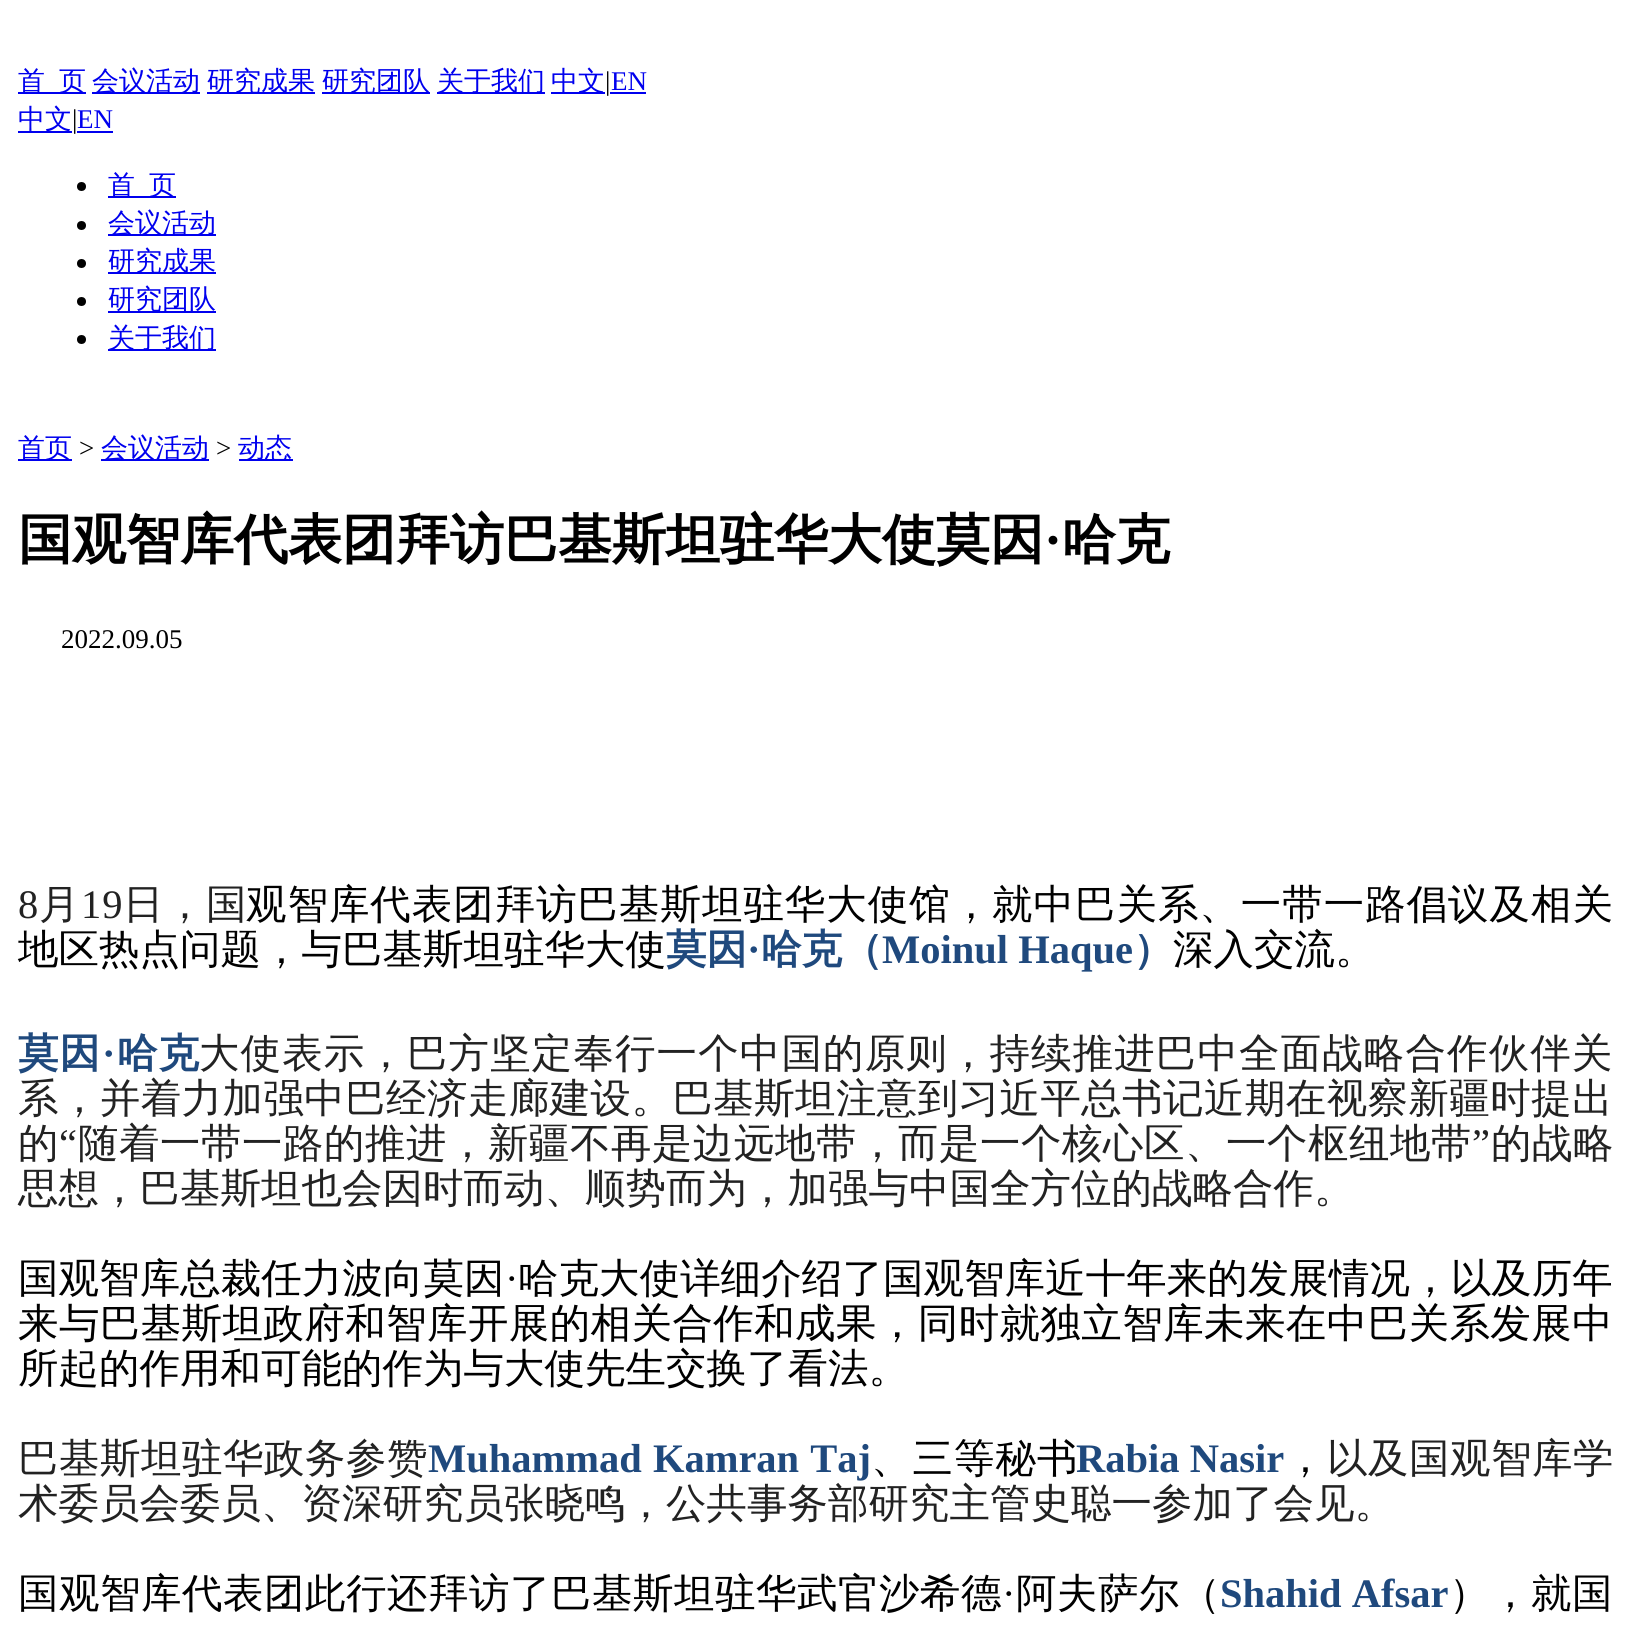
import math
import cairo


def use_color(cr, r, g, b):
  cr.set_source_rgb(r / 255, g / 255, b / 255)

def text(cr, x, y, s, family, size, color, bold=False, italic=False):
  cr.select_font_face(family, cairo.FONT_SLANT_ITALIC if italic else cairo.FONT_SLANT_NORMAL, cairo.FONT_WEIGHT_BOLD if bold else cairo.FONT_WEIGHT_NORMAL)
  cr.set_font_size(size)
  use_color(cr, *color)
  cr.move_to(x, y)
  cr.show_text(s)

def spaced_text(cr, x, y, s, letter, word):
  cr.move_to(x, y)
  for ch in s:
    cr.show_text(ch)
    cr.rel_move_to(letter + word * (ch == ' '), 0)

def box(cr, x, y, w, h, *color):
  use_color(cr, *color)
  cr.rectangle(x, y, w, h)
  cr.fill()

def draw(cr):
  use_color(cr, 255, 255, 255)
  cr.paint()
  box(cr, 18, 92, 68, 2, 0, 0, 238)
  box(cr, 92, 92, 108, 2, 0, 0, 238)
  box(cr, 207, 92, 108, 2, 0, 0, 238)
  box(cr, 322, 92, 108, 2, 0, 0, 238)
  box(cr, 437, 92, 108, 2, 0, 0, 238)
  box(cr, 551, 92, 54, 2, 0, 0, 238)
  box(cr, 610, 92, 36, 2, 0, 0, 238)
  box(cr, 18, 131, 54, 2, 0, 0, 238)
  box(cr, 77, 131, 36, 2, 0, 0, 238)
  use_color(cr, 0, 0, 0)
  cr.arc(81.5, 186.5, 4.5, 0, 2 * math.pi)
  cr.fill()
  box(cr, 108, 196, 68, 2, 0, 0, 238)
  use_color(cr, 0, 0, 0)
  cr.arc(81.5, 225.5, 4.5, 0, 2 * math.pi)
  cr.fill()
  box(cr, 108, 234, 108, 2, 0, 0, 238)
  use_color(cr, 0, 0, 0)
  cr.arc(81.5, 263.5, 4.5, 0, 2 * math.pi)
  cr.fill()
  box(cr, 108, 272, 108, 2, 0, 0, 238)
  use_color(cr, 0, 0, 0)
  cr.arc(81.5, 301.5, 4.5, 0, 2 * math.pi)
  cr.fill()
  box(cr, 108, 311, 108, 2, 0, 0, 238)
  use_color(cr, 0, 0, 0)
  cr.arc(81.5, 339.5, 4.5, 0, 2 * math.pi)
  cr.fill()
  box(cr, 108, 349, 108, 2, 0, 0, 238)
  box(cr, 18, 459, 54, 2, 0, 0, 238)
  box(cr, 101, 459, 108, 2, 0, 0, 238)
  box(cr, 239, 459, 54, 2, 0, 0, 238)
  text(cr, 18, 90, "首", "WenQuanYi Zen Hei Medium", 27, (0, 0, 238))
  text(cr, 59, 90, "页", "WenQuanYi Zen Hei Medium", 27, (0, 0, 238))
  text(cr, 92, 90, "会议活动", "WenQuanYi Zen Hei Medium", 27, (0, 0, 238))
  text(cr, 207, 90, "研究成果", "WenQuanYi Zen Hei Medium", 27, (0, 0, 238))
  text(cr, 322, 90, "研究团队", "WenQuanYi Zen Hei Medium", 27, (0, 0, 238))
  text(cr, 437, 90, "关于我们", "WenQuanYi Zen Hei Medium", 27, (0, 0, 238))
  text(cr, 551, 90, "中文", "WenQuanYi Zen Hei Medium", 27, (0, 0, 238))
  text(cr, 605, 90, "|", "Liberation Serif", 27, (0, 0, 0))
  text(cr, 611, 90, "EN", "Liberation Serif", 27, (0, 0, 238))
  text(cr, 18, 128, "中文", "WenQuanYi Zen Hei Medium", 27, (0, 0, 238))
  text(cr, 72, 128, "|", "Liberation Serif", 27, (0, 0, 0))
  text(cr, 77, 128, "EN", "Liberation Serif", 27, (0, 0, 238))
  text(cr, 108, 194, "首", "WenQuanYi Zen Hei Medium", 27, (0, 0, 238))
  text(cr, 149, 194, "页", "WenQuanYi Zen Hei Medium", 27, (0, 0, 238))
  text(cr, 108, 232, "会议活动", "WenQuanYi Zen Hei Medium", 27, (0, 0, 238))
  text(cr, 108, 270, "研究成果", "WenQuanYi Zen Hei Medium", 27, (0, 0, 238))
  text(cr, 108, 308, "研究团队", "WenQuanYi Zen Hei Medium", 27, (0, 0, 238))
  text(cr, 108, 347, "关于我们", "WenQuanYi Zen Hei Medium", 27, (0, 0, 238))
  text(cr, 18, 457, "首页", "WenQuanYi Zen Hei Medium", 27, (0, 0, 238))
  text(cr, 79, 457, ">", "Liberation Serif", 27, (0, 0, 0))
  text(cr, 101, 457, "会议活动", "WenQuanYi Zen Hei Medium", 27, (0, 0, 238))
  text(cr, 216, 457, ">", "Liberation Serif", 27, (0, 0, 0))
  text(cr, 238, 457, "动态", "WenQuanYi Zen Hei Medium", 27, (0, 0, 238))
  text(cr, 18, 558, "国观智库代表团拜访巴基斯坦驻华大使莫因", "WenQuanYi Zen Hei", 54, (0, 0, 0), bold=True)
  text(cr, 1044, 558, "·", "Liberation Serif", 54, (0, 0, 0), bold=True)
  text(cr, 1062, 558, "哈克", "WenQuanYi Zen Hei", 54, (0, 0, 0), bold=True)
  text(cr, 61, 648, "2022.09.05", "Liberation Serif", 27, (0, 0, 0))
  cr.set_font_size(40.5)
  use_color(cr, 34, 34, 34)
  spaced_text(cr, 18, 918, "8", 0.95, 0)
  cr.select_font_face("WenQuanYi Zen Hei Medium")
  spaced_text(cr, 39, 918, "月", 0.95, 0)
  cr.select_font_face("Liberation Serif")
  spaced_text(cr, 81, 918, "19", 0.95, 0)
  cr.select_font_face("WenQuanYi Zen Hei Medium")
  spaced_text(cr, 123, 918, "日，国", 0.95, 0)
  use_color(cr, 0, 0, 0)
  spaced_text(cr, 246, 918, "观智库代表团拜访巴基斯坦驻华大使馆，就中巴关系、一带一路倡议及相关", 0.95, 0)
  text(cr, 18, 963, "地区热点问题，与巴基斯坦驻华大使", "WenQuanYi Zen Hei Medium", 40.5, (0, 0, 0))
  text(cr, 666, 963, "莫因", "WenQuanYi Zen Hei", 40.5, (31, 73, 125), bold=True)
  text(cr, 747, 963, "·", "Liberation Serif", 40.5, (31, 73, 125), bold=True)
  text(cr, 761, 963, "哈克（", "WenQuanYi Zen Hei", 40.5, (31, 73, 125), bold=True)
  text(cr, 882, 963, "Moinul Haque", "Liberation Serif", 40.5, (31, 73, 125), bold=True)
  text(cr, 1133, 963, "）", "WenQuanYi Zen Hei", 40.5, (31, 73, 125), bold=True)
  text(cr, 1173, 963, "深入交流。", "WenQuanYi Zen Hei Medium", 40.5, (0, 0, 0))
  cr.select_font_face("WenQuanYi Zen Hei", cairo.FONT_SLANT_NORMAL, cairo.FONT_WEIGHT_BOLD)
  use_color(cr, 31, 73, 125)
  spaced_text(cr, 18, 1067, "莫因", 1, 0)
  cr.select_font_face("Liberation Serif", cairo.FONT_SLANT_NORMAL, cairo.FONT_WEIGHT_BOLD)
  spaced_text(cr, 102, 1067, "·", 1, 0)
  cr.select_font_face("WenQuanYi Zen Hei", cairo.FONT_SLANT_NORMAL, cairo.FONT_WEIGHT_BOLD)
  spaced_text(cr, 117, 1067, "哈克", 1, 0)
  cr.select_font_face("WenQuanYi Zen Hei Medium")
  use_color(cr, 34, 34, 34)
  spaced_text(cr, 199, 1067, "大使表示，巴方坚定奉行一个中国的原则，持续推进巴中全面战略合作伙伴关", 1.1, 0)
  spaced_text(cr, 18, 1112, "系，并着力加强中巴经济走廊建设。巴基斯坦注意到习近平总书记近期在视察新疆时提出", 0.4, 0)
  spaced_text(cr, 18, 1157, "的", 0.5, 0)
  cr.select_font_face("Liberation Serif")
  spaced_text(cr, 59, 1157, "“", 0.5, 0)
  cr.select_font_face("WenQuanYi Zen Hei Medium")
  spaced_text(cr, 78, 1157, "随着一带一路的推进，新疆不再是边远地带，而是一个核心区、一个枢纽地带", 0.5, 0)
  cr.select_font_face("Liberation Serif")
  spaced_text(cr, 1472, 1157, "”", 0.5, 0)
  cr.select_font_face("WenQuanYi Zen Hei Medium")
  spaced_text(cr, 1491, 1157, "的战略", 0.5, 0)
  text(cr, 18, 1202, "思想，巴基斯坦也会因时而动、顺势而为，加强与中国全方位的战略合作。", "WenQuanYi Zen Hei Medium", 40.5, (34, 34, 34))
  use_color(cr, 0, 0, 0)
  spaced_text(cr, 18, 1292, "国观智库总裁任力波向莫因", 0.05, 0)
  cr.select_font_face("Liberation Serif")
  spaced_text(cr, 505, 1292, "·", 0.05, 0)
  cr.select_font_face("WenQuanYi Zen Hei Medium")
  spaced_text(cr, 518, 1292, "哈克大使详细介绍了国观智库近十年来的发展情况，以及历年", 0.05, 0)
  spaced_text(cr, 18, 1337, "来与巴基斯坦政府和智库开展的相关合作和成果，同时就独立智库未来在中巴关系发展中", 0.4, 0)
  text(cr, 18, 1382, "所起的作用和可能的作为与大使先生交换了看法。", "WenQuanYi Zen Hei Medium", 40.5, (0, 0, 0))
  use_color(cr, 34, 34, 34)
  spaced_text(cr, 18, 1472, "巴基斯坦驻华政务参赞", 0.5, 0)
  cr.select_font_face("Liberation Serif", cairo.FONT_SLANT_NORMAL, cairo.FONT_WEIGHT_BOLD)
  use_color(cr, 31, 73, 125)
  spaced_text(cr, 428, 1472, "Muhammad Kamran Taj", 0, 1)
  cr.select_font_face("WenQuanYi Zen Hei Medium")
  use_color(cr, 0, 0, 0)
  spaced_text(cr, 871, 1472, "、三等秘书", 1, 0)
  text(cr, 1076, 1472, "Rabia Nasir", "Liberation Serif", 40.5, (31, 73, 125), bold=True)
  text(cr, 1285, 1472, "，", "WenQuanYi Zen Hei Medium", 40.5, (0, 0, 0))
  use_color(cr, 34, 34, 34)
  spaced_text(cr, 1327, 1472, "以及国观智库学", 0.5, 0)
  text(cr, 18, 1517, "术委员会委员、资深研究员张晓鸣，公共事务部研究主管史聪一参加了会见。", "WenQuanYi Zen Hei Medium", 40.5, (34, 34, 34))
  use_color(cr, 0, 0, 0)
  spaced_text(cr, 18, 1607, "国观智库代表团此行还拜访了巴基斯坦驻华武官沙希德", 0.5, 0)
  cr.select_font_face("Liberation Serif")
  spaced_text(cr, 1002, 1607, "·", 0.5, 0)
  cr.select_font_face("WenQuanYi Zen Hei Medium")
  spaced_text(cr, 1016, 1607, "阿夫萨尔（", 0.5, 0)
  text(cr, 1220, 1607, "Shahid Afsar", "Liberation Serif", 40.5, (31, 73, 125), bold=True)
  cr.select_font_face("WenQuanYi Zen Hei Medium")
  use_color(cr, 0, 0, 0)
  spaced_text(cr, 1449, 1607, "），就国", 0.5, 0)


surface = cairo.ImageSurface(cairo.FORMAT_RGB24, 1631, 1631)
cr = cairo.Context(surface)
options = cairo.FontOptions()
options.set_hint_metrics(cairo.HINT_METRICS_OFF)
options.set_hint_style(cairo.HINT_STYLE_NONE)
cr.set_font_options(options)
cr.set_miter_limit(4)
draw(cr)
surface.write_to_png("out.png")
